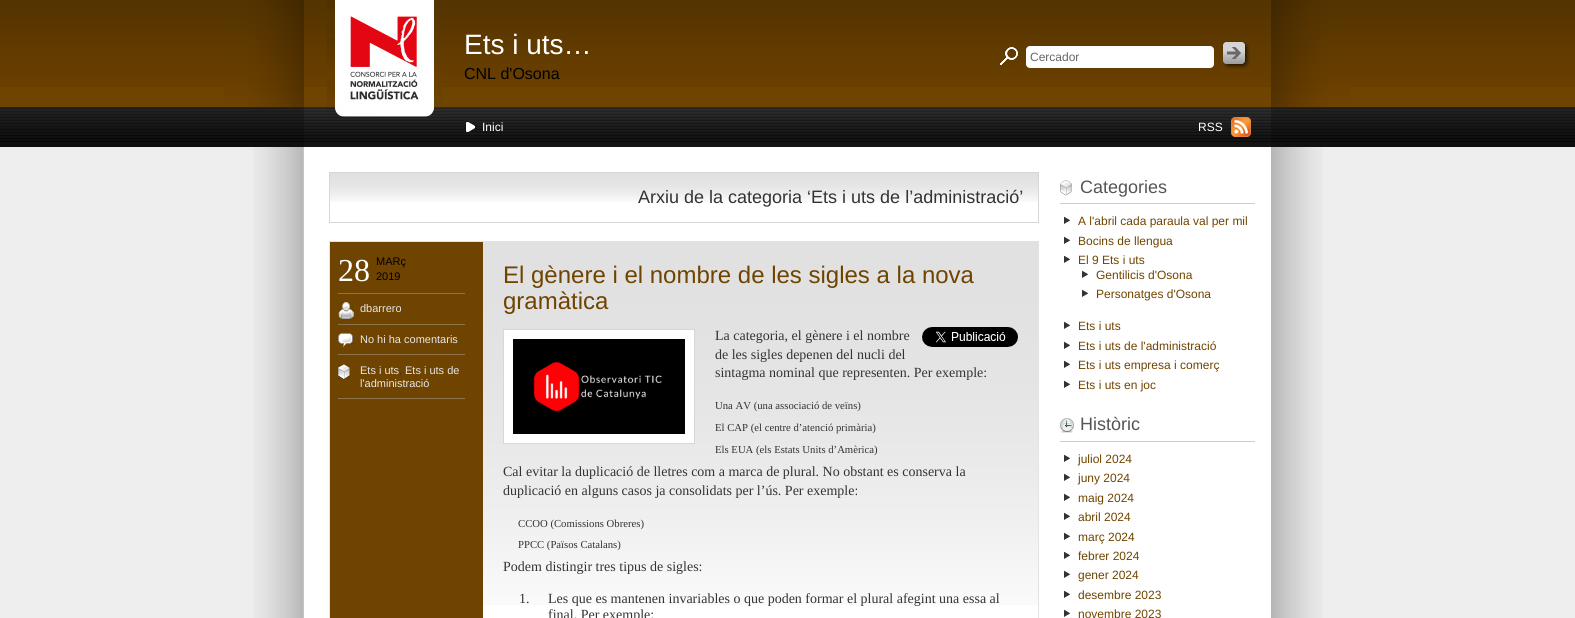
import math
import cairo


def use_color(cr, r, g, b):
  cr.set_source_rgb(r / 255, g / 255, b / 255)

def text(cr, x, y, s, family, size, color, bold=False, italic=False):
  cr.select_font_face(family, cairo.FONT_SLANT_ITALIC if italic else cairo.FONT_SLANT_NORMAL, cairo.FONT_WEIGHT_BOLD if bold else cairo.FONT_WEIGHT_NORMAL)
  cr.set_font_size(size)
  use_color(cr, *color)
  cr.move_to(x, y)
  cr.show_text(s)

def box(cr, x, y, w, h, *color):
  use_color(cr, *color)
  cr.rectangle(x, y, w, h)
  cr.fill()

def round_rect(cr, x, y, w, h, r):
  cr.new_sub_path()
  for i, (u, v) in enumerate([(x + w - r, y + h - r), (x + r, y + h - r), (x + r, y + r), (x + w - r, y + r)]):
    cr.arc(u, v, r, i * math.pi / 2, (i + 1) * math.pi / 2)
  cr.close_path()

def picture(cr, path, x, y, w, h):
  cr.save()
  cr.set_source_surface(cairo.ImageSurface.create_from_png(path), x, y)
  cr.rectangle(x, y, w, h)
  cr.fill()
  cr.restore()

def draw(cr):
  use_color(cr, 238, 238, 238)
  cr.paint()
  picture(cr, "img_01.png", 253, 147, 1070, 471)
  box(cr, 0, 87, 1575, 20, 111, 68, 0)
  picture(cr, "img_02.png", 0, 0, 1575, 87)
  picture(cr, "img_03.png", 224, 0, 1127, 107)
  box(cr, 304, 87, 967, 17, 111, 68, 0)
  picture(cr, "img_04.png", 304, 0, 967, 87)
  picture(cr, "img_08.png", 0, 107, 1575, 35)
  picture(cr, "img_09.png", 304, 107, 967, 35)
  picture(cr, "img_05.png", 327, 0, 115, 119)
  picture(cr, "img_06.png", 999, 47, 19, 18)
  use_color(cr, 255, 255, 255)
  round_rect(cr, 1026.5, 46.5, 187, 21, 3.5)
  cr.fill_preserve()
  cr.set_line_width(1)
  cr.stroke()
  picture(cr, "img_07.png", 1222, 41, 28, 28)
  box(cr, 0, 142, 1575, 5, 15, 15, 15)
  box(cr, 304, 142, 967, 5, 20, 20, 20)
  picture(cr, "img_10.png", 464, 120, 13, 13)
  picture(cr, "img_11.png", 1231, 117, 20, 20)
  picture(cr, "img_12.png", 330, 173, 708, 29)
  cr.rectangle(329.5, 172.5, 709, 50)
  use_color(cr, 215, 215, 215)
  cr.stroke()
  box(cr, 330, 242, 153, 376, 111, 68, 0)
  cr.rectangle(329.5, 241.5, 709, 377)
  use_color(cr, 227, 227, 227)
  cr.stroke()
  box(cr, 338, 293, 127, 1, 142, 116, 76)
  picture(cr, "img_13.png", 338, 302, 16, 17)
  box(cr, 338, 324, 127, 1, 142, 116, 76)
  picture(cr, "img_14.png", 338, 333, 15, 14)
  box(cr, 338, 354, 127, 1, 142, 116, 76)
  picture(cr, "img_15.png", 338, 364, 12, 16)
  box(cr, 338, 398, 127, 1, 142, 116, 76)
  picture(cr, "img_16.png", 483, 242, 555, 363)
  picture(cr, "img_17.png", 922, 327, 96, 20)
  use_color(cr, 255, 255, 255)
  cr.rectangle(503.5, 329.5, 191, 114)
  cr.fill_preserve()
  use_color(cr, 215, 215, 215)
  cr.stroke()
  picture(cr, "img_18.png", 513, 339, 172, 95)
  picture(cr, "img_19.png", 1060, 180, 12, 16)
  box(cr, 1060, 203, 195, 1, 205, 205, 205)
  picture(cr, "img_20.png", 1064, 216, 6, 8)
  picture(cr, "img_20.png", 1064, 236, 6, 8)
  picture(cr, "img_20.png", 1064, 255, 6, 8)
  picture(cr, "img_20.png", 1082, 270, 6, 8)
  picture(cr, "img_20.png", 1082, 289, 6, 8)
  picture(cr, "img_20.png", 1064, 321, 6, 8)
  picture(cr, "img_20.png", 1064, 341, 6, 8)
  picture(cr, "img_20.png", 1064, 360, 6, 8)
  picture(cr, "img_20.png", 1064, 380, 6, 8)
  picture(cr, "img_21.png", 1060, 418, 14, 15)
  box(cr, 1060, 441, 195, 1, 205, 205, 205)
  picture(cr, "img_20.png", 1064, 454, 6, 8)
  picture(cr, "img_20.png", 1064, 473, 6, 8)
  picture(cr, "img_20.png", 1064, 493, 6, 8)
  picture(cr, "img_20.png", 1064, 512, 6, 8)
  picture(cr, "img_20.png", 1064, 532, 6, 8)
  picture(cr, "img_20.png", 1064, 551, 6, 8)
  picture(cr, "img_20.png", 1064, 570, 6, 8)
  picture(cr, "img_20.png", 1064, 590, 6, 8)
  picture(cr, "img_20.png", 1064, 609, 6, 8)
  text(cr, 464, 54, "Ets i uts…", "Liberation Sans", 28, (255, 255, 255))
  text(cr, 1030, 61, "Cercador", "Liberation Sans", 12, (102, 102, 102))
  text(cr, 464, 79, "CNL d'Osona", "Liberation Sans", 16, (0, 0, 0))
  text(cr, 482, 131, "Inici", "Liberation Sans", 12, (255, 255, 255))
  text(cr, 1198, 131, "RSS", "Liberation Sans", 12, (255, 255, 255))
  text(cr, 638, 203, "Arxiu de la categoria ‘Ets i uts de l’administració’", "Liberation Sans", 18, (51, 51, 51))
  text(cr, 338, 281, "28", "Liberation Serif", 32, (255, 255, 255))
  text(cr, 376, 265, "MARç", "Liberation Sans", 11, (0, 0, 0))
  text(cr, 376, 280, "2019", "Liberation Sans", 11, (0, 0, 0))
  text(cr, 360, 312, "dbarrero", "Liberation Sans", 11, (230, 230, 230))
  text(cr, 360, 343, "No hi ha comentaris", "Liberation Sans", 11, (230, 230, 230))
  text(cr, 360, 374, "Ets i uts", "Liberation Sans", 11, (230, 230, 230))
  text(cr, 399, 374, ",", "Liberation Sans", 11, (51, 51, 51))
  text(cr, 405, 374, "Ets i uts de", "Liberation Sans", 11, (230, 230, 230))
  text(cr, 360, 387, "l'administració", "Liberation Sans", 11, (230, 230, 230))
  text(cr, 503, 283, "El gènere i el nombre de les sigles a la nova", "Liberation Sans", 24, (111, 68, 0))
  text(cr, 503, 309, "gramàtica", "Liberation Sans", 24, (111, 68, 0))
  text(cr, 715, 340, "La categoria, el gènere i el nombre", "Liberation Serif", 14, (51, 51, 51))
  text(cr, 715, 359, "de les sigles depenen del nucli del", "Liberation Serif", 14, (51, 51, 51))
  text(cr, 715, 377, "sintagma nominal que representen. Per exemple:", "Liberation Serif", 14, (51, 51, 51))
  text(cr, 715, 409, "Una AV (una associació de veïns)", "Liberation Serif", 10.7, (51, 51, 51))
  text(cr, 715, 431, "El CAP (el centre d’atenció primària)", "Liberation Serif", 10.7, (51, 51, 51))
  text(cr, 715, 453, "Els EUA (els Estats Units d’Amèrica)", "Liberation Serif", 10.7, (51, 51, 51))
  text(cr, 503, 476, "Cal evitar la duplicació de lletres com a marca de plural. No obstant es conserva la", "Liberation Serif", 14, (51, 51, 51))
  text(cr, 503, 495, "duplicació en alguns casos ja consolidats per l’ús. Per exemple:", "Liberation Serif", 14, (51, 51, 51))
  text(cr, 518, 527, "CCOO (Comissions Obreres)", "Liberation Serif", 10.7, (51, 51, 51))
  text(cr, 518, 548, "PPCC (Països Catalans)", "Liberation Serif", 10.7, (51, 51, 51))
  text(cr, 503, 571, "Podem distingir tres tipus de sigles:", "Liberation Serif", 14, (51, 51, 51))
  text(cr, 519, 603, "1.", "Liberation Serif", 14, (51, 51, 51))
  text(cr, 548, 603, "Les que es mantenen invariables o que poden formar el plural afegint una essa al", "Liberation Serif", 14, (51, 51, 51))
  text(cr, 548, 619, "final. Per exemple:", "Liberation Serif", 14, (51, 51, 51))
  text(cr, 1080, 193, "Categories", "Liberation Sans", 18, (85, 85, 85))
  text(cr, 1078, 225, "A l'abril cada paraula val per mil", "Liberation Sans", 12, (111, 68, 0))
  text(cr, 1078, 245, "Bocins de llengua", "Liberation Sans", 12, (111, 68, 0))
  text(cr, 1078, 264, "El 9 Ets i uts", "Liberation Sans", 12, (111, 68, 0))
  text(cr, 1096, 279, "Gentilicis d'Osona", "Liberation Sans", 12, (111, 68, 0))
  text(cr, 1096, 298, "Personatges d'Osona", "Liberation Sans", 12, (111, 68, 0))
  text(cr, 1078, 330, "Ets i uts", "Liberation Sans", 12, (111, 68, 0))
  text(cr, 1078, 350, "Ets i uts de l'administració", "Liberation Sans", 12, (111, 68, 0))
  text(cr, 1078, 369, "Ets i uts empresa i comerç", "Liberation Sans", 12, (111, 68, 0))
  text(cr, 1078, 389, "Ets i uts en joc", "Liberation Sans", 12, (111, 68, 0))
  text(cr, 1080, 430, "Històric", "Liberation Sans", 18, (85, 85, 85))
  text(cr, 1078, 463, "juliol 2024", "Liberation Sans", 12, (111, 68, 0))
  text(cr, 1078, 482, "juny 2024", "Liberation Sans", 12, (111, 68, 0))
  text(cr, 1078, 502, "maig 2024", "Liberation Sans", 12, (111, 68, 0))
  text(cr, 1078, 521, "abril 2024", "Liberation Sans", 12, (111, 68, 0))
  text(cr, 1078, 541, "març 2024", "Liberation Sans", 12, (111, 68, 0))
  text(cr, 1078, 560, "febrer 2024", "Liberation Sans", 12, (111, 68, 0))
  text(cr, 1078, 579, "gener 2024", "Liberation Sans", 12, (111, 68, 0))
  text(cr, 1078, 599, "desembre 2023", "Liberation Sans", 12, (111, 68, 0))
  text(cr, 1078, 618, "novembre 2023", "Liberation Sans", 12, (111, 68, 0))


surface = cairo.ImageSurface(cairo.FORMAT_RGB24, 1575, 618)
cr = cairo.Context(surface)
options = cairo.FontOptions()
options.set_hint_metrics(cairo.HINT_METRICS_OFF)
options.set_hint_style(cairo.HINT_STYLE_NONE)
cr.set_font_options(options)
cr.set_miter_limit(4)
draw(cr)
surface.write_to_png("out.png")
